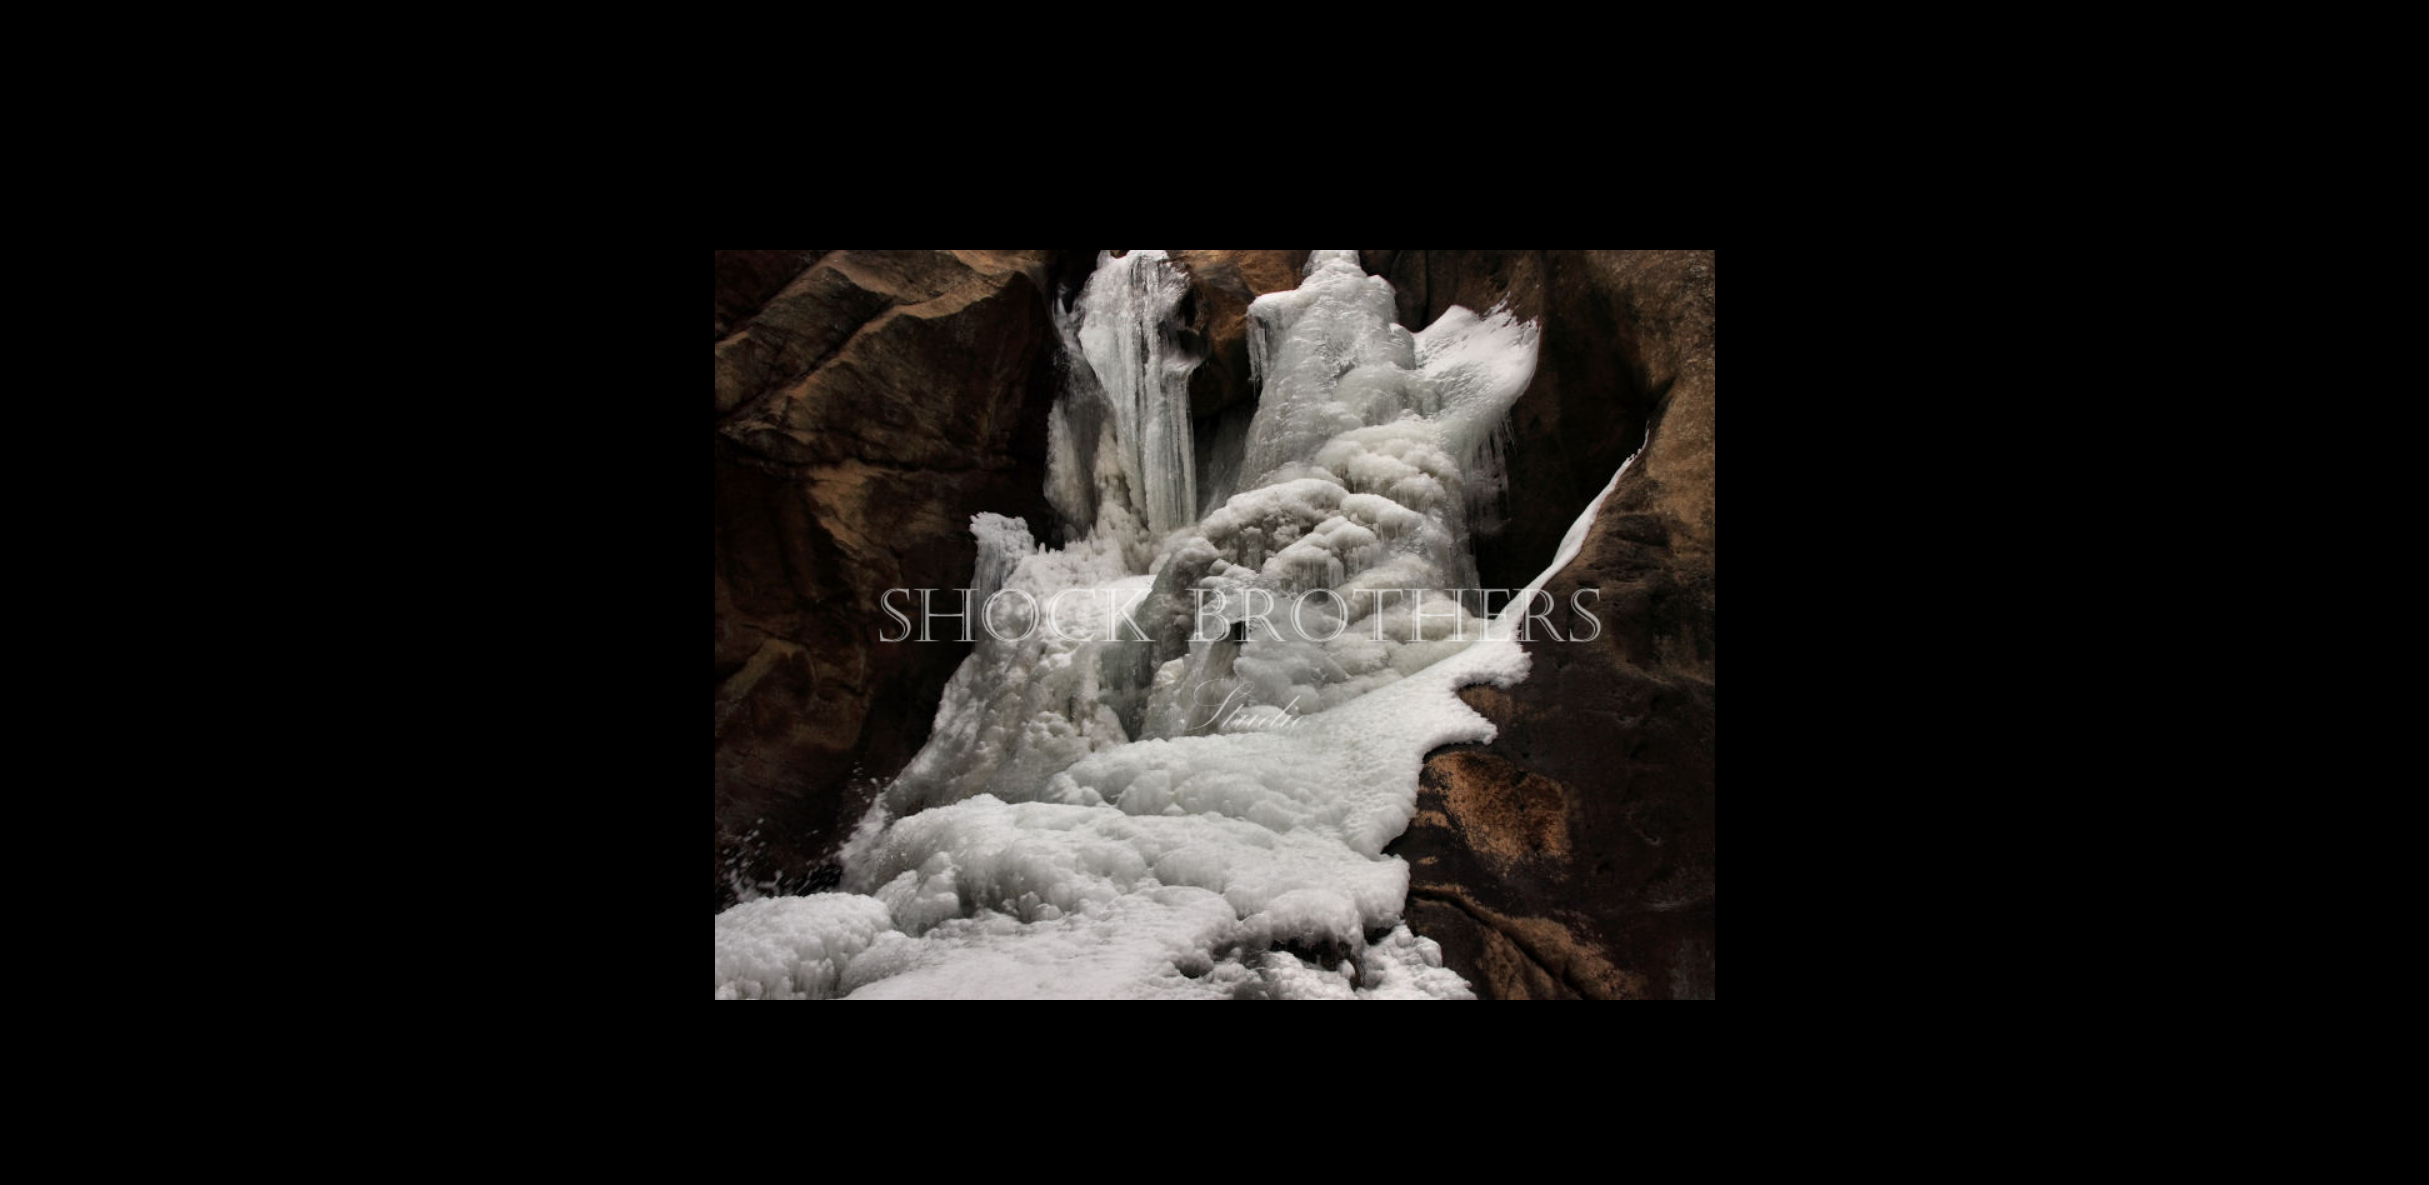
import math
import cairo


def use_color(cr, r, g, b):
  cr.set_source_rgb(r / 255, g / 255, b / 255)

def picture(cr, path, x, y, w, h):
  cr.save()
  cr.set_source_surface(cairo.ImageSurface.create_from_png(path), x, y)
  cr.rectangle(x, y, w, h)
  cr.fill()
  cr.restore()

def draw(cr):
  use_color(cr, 0, 0, 0)
  cr.paint()
  picture(cr, "img_01.png", 715, 250, 1000, 750)


surface = cairo.ImageSurface(cairo.FORMAT_RGB24, 2429, 1185)
cr = cairo.Context(surface)
options = cairo.FontOptions()
options.set_hint_metrics(cairo.HINT_METRICS_OFF)
options.set_hint_style(cairo.HINT_STYLE_NONE)
cr.set_font_options(options)
cr.set_miter_limit(4)
draw(cr)
surface.write_to_png("out.png")
